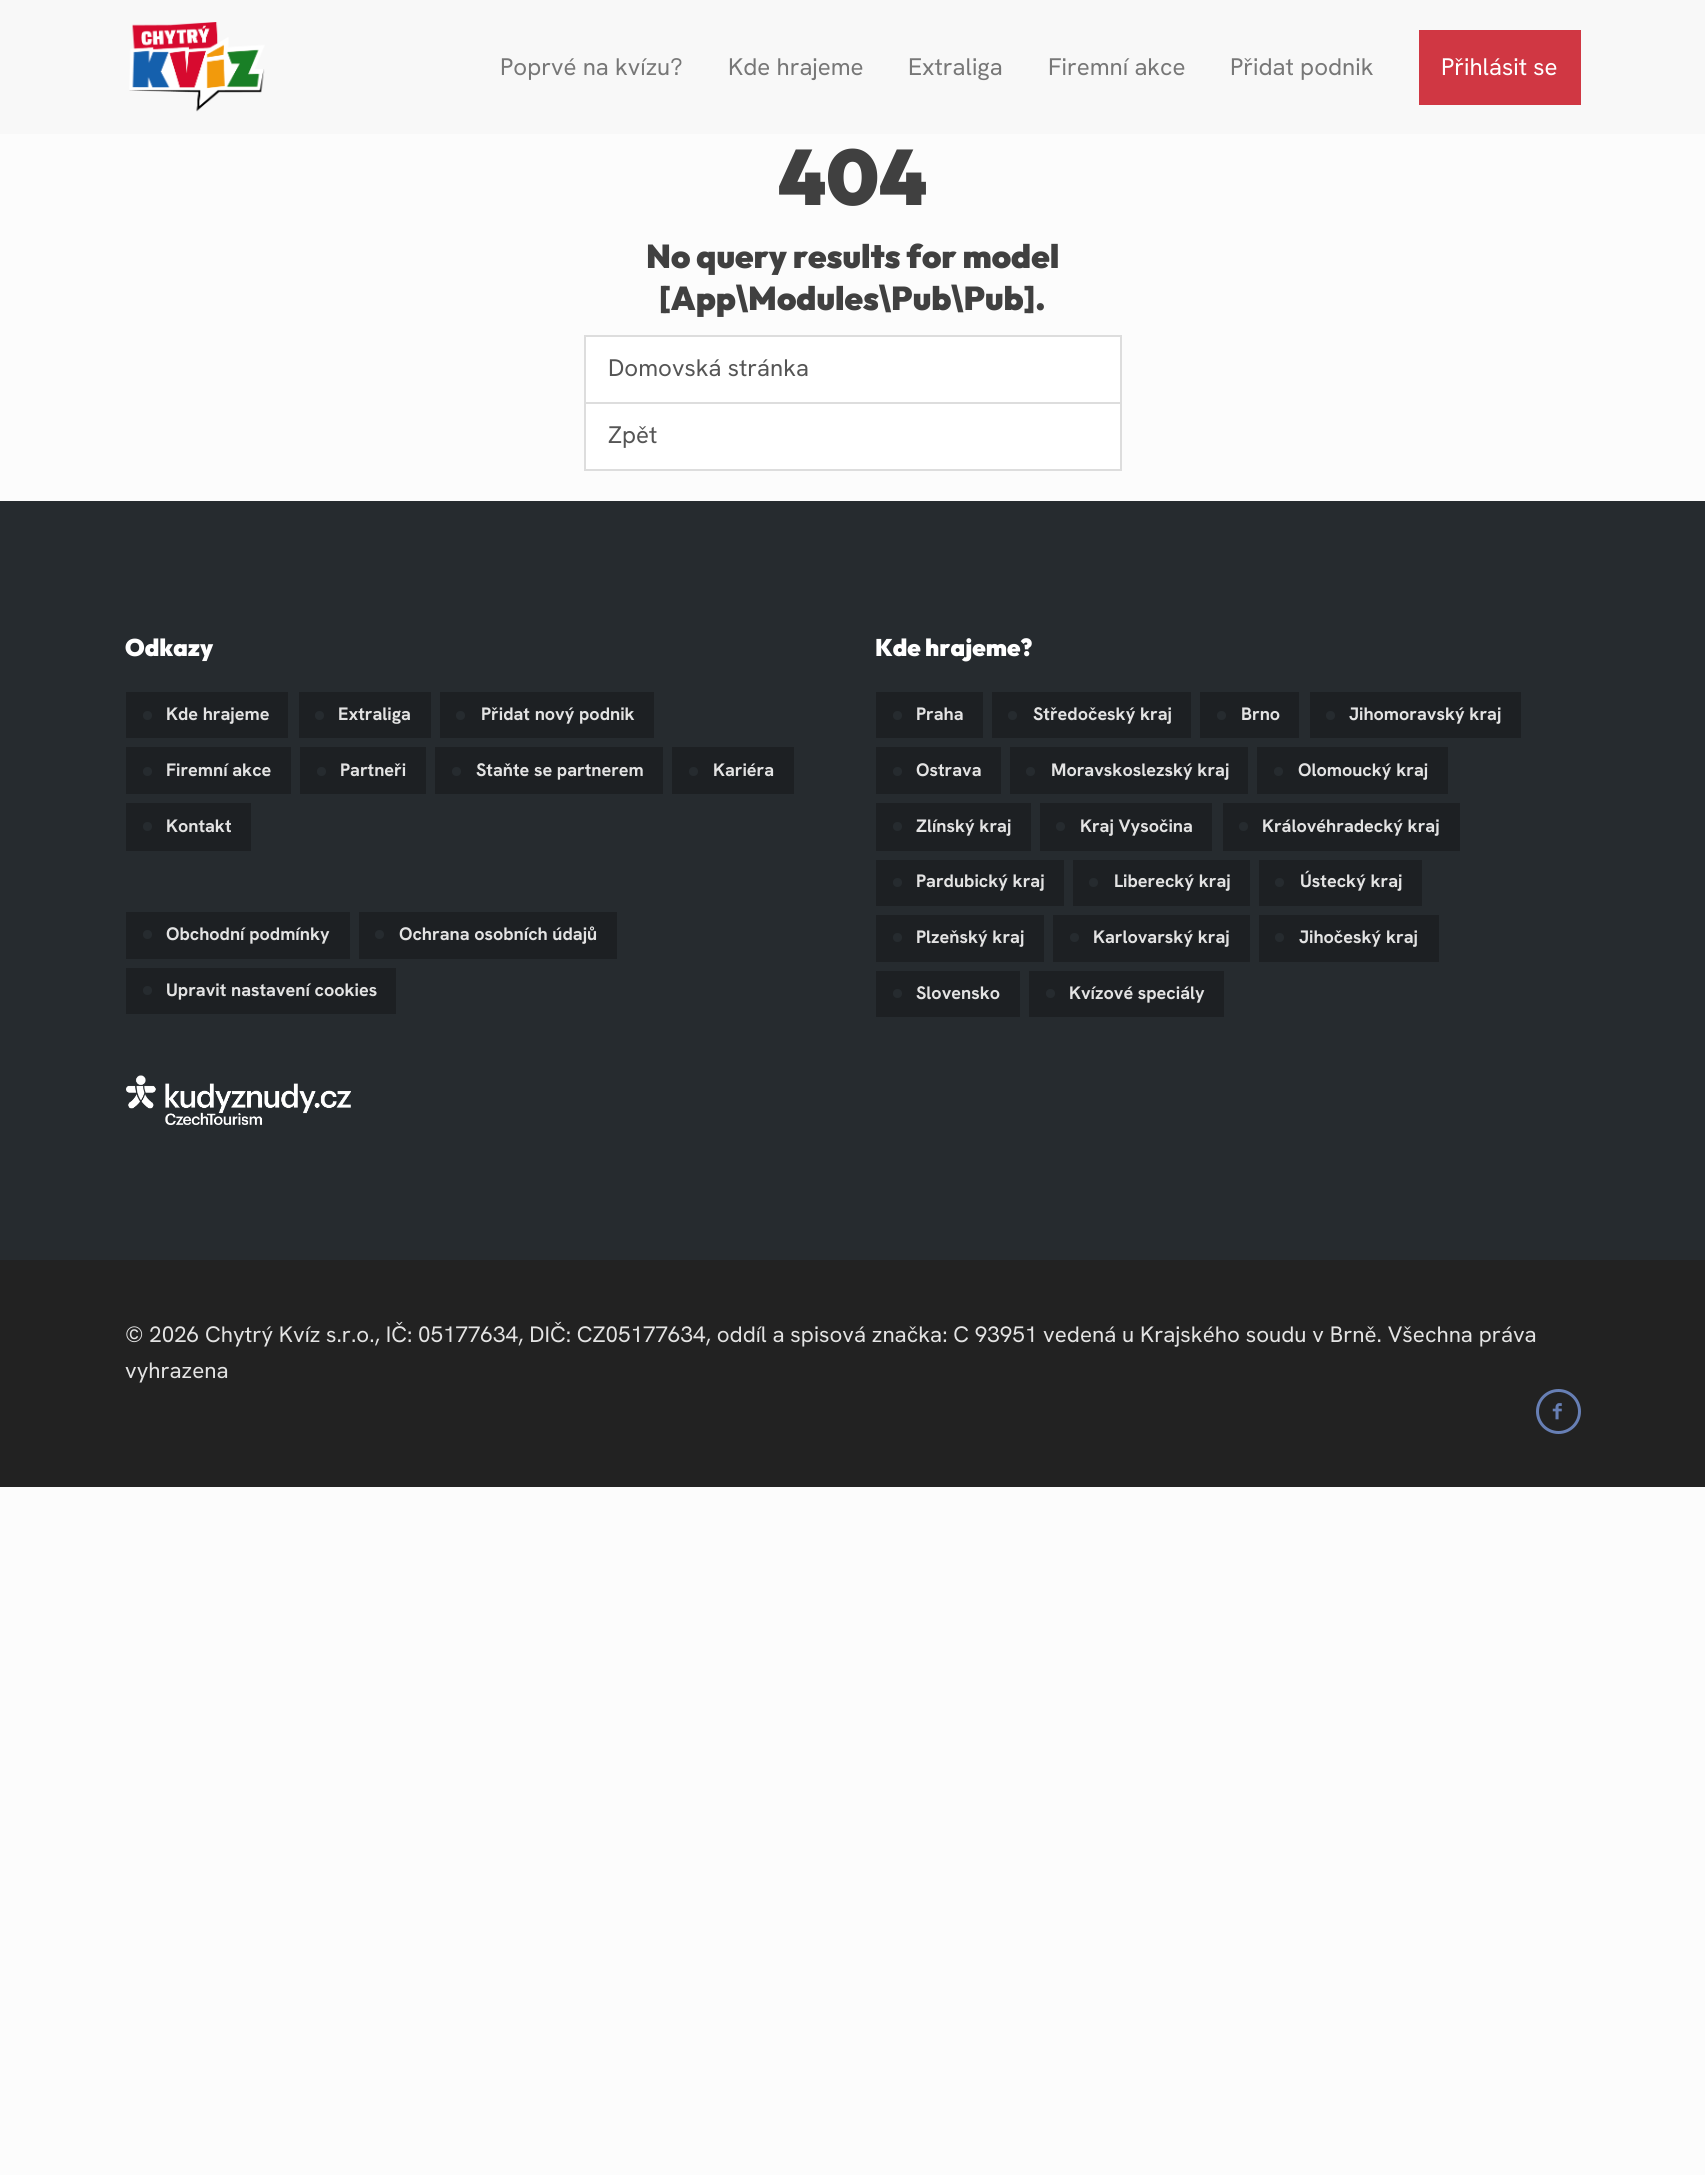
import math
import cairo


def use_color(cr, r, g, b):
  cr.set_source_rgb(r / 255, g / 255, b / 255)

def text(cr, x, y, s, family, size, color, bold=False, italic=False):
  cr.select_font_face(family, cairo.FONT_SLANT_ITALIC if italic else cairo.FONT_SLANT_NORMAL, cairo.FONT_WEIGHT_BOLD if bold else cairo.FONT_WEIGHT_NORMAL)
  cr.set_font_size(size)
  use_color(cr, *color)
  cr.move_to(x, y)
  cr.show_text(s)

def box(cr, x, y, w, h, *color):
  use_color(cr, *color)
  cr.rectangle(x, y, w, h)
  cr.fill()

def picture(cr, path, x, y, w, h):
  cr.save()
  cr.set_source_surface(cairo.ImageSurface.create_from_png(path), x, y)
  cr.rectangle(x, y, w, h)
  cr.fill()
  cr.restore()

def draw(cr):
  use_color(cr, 252, 252, 252)
  cr.paint()
  box(cr, 0, 0, 1705, 134, 248, 248, 248)
  picture(cr, "img_01.png", 129, 22, 136, 90)
  box(cr, 1419, 30, 162, 75, 208, 55, 67)
  use_color(cr, 255, 255, 255)
  cr.rectangle(585, 336, 536, 67)
  cr.fill_preserve()
  use_color(cr, 221, 221, 221)
  cr.stroke()
  use_color(cr, 255, 255, 255)
  cr.rectangle(585, 403, 536, 67)
  cr.fill_preserve()
  use_color(cr, 221, 221, 221)
  cr.stroke()
  box(cr, 0, 501, 1705, 759, 38, 43, 47)
  box(cr, 126, 692, 162, 46, 29, 32, 35)
  use_color(cr, 38, 43, 47)
  cr.arc(147.5, 715.5, 4.5, 0, 2 * math.pi)
  cr.fill()
  box(cr, 299, 692, 132, 46, 29, 32, 35)
  use_color(cr, 38, 43, 47)
  cr.arc(319.5, 715.5, 4.5, 0, 2 * math.pi)
  cr.fill()
  box(cr, 440, 692, 214, 46, 29, 32, 35)
  use_color(cr, 38, 43, 47)
  cr.arc(460.5, 715.5, 4.5, 0, 2 * math.pi)
  cr.fill()
  box(cr, 126, 747, 165, 47, 29, 32, 35)
  use_color(cr, 38, 43, 47)
  cr.arc(147.5, 771.5, 4.5, 0, 2 * math.pi)
  cr.fill()
  box(cr, 300, 747, 126, 47, 29, 32, 35)
  use_color(cr, 38, 43, 47)
  cr.arc(321.5, 771.5, 4.5, 0, 2 * math.pi)
  cr.fill()
  box(cr, 435, 747, 228, 47, 29, 32, 35)
  use_color(cr, 38, 43, 47)
  cr.arc(456.5, 771.5, 4.5, 0, 2 * math.pi)
  cr.fill()
  box(cr, 672, 747, 122, 47, 29, 32, 35)
  use_color(cr, 38, 43, 47)
  cr.arc(693.5, 771.5, 4.5, 0, 2 * math.pi)
  cr.fill()
  box(cr, 126, 803, 125, 48, 29, 32, 35)
  use_color(cr, 38, 43, 47)
  cr.arc(147.5, 826.5, 4.5, 0, 2 * math.pi)
  cr.fill()
  box(cr, 126, 912, 224, 47, 29, 32, 35)
  use_color(cr, 38, 43, 47)
  cr.arc(147.5, 934.5, 4.5, 0, 2 * math.pi)
  cr.fill()
  box(cr, 359, 912, 258, 47, 29, 32, 35)
  use_color(cr, 38, 43, 47)
  cr.arc(379.5, 934.5, 4.5, 0, 2 * math.pi)
  cr.fill()
  box(cr, 126, 968, 270, 46, 29, 32, 35)
  use_color(cr, 38, 43, 47)
  cr.arc(147.5, 990.5, 4.5, 0, 2 * math.pi)
  cr.fill()
  picture(cr, "img_02.png", 126, 1075, 225, 50)
  box(cr, 876, 692, 107, 46, 29, 32, 35)
  use_color(cr, 38, 43, 47)
  cr.arc(897.5, 715.5, 4.5, 0, 2 * math.pi)
  cr.fill()
  box(cr, 992, 692, 199, 46, 29, 32, 35)
  use_color(cr, 38, 43, 47)
  cr.arc(1012.5, 715.5, 4.5, 0, 2 * math.pi)
  cr.fill()
  box(cr, 1200, 692, 99, 46, 29, 32, 35)
  use_color(cr, 38, 43, 47)
  cr.arc(1221.5, 715.5, 4.5, 0, 2 * math.pi)
  cr.fill()
  box(cr, 1310, 692, 211, 46, 29, 32, 35)
  use_color(cr, 38, 43, 47)
  cr.arc(1330.5, 715.5, 4.5, 0, 2 * math.pi)
  cr.fill()
  box(cr, 876, 747, 125, 47, 29, 32, 35)
  use_color(cr, 38, 43, 47)
  cr.arc(897.5, 771.5, 4.5, 0, 2 * math.pi)
  cr.fill()
  box(cr, 1010, 747, 238, 47, 29, 32, 35)
  use_color(cr, 38, 43, 47)
  cr.arc(1030.5, 771.5, 4.5, 0, 2 * math.pi)
  cr.fill()
  box(cr, 1257, 747, 191, 47, 29, 32, 35)
  use_color(cr, 38, 43, 47)
  cr.arc(1278.5, 771.5, 4.5, 0, 2 * math.pi)
  cr.fill()
  box(cr, 876, 803, 155, 48, 29, 32, 35)
  use_color(cr, 38, 43, 47)
  cr.arc(897.5, 826.5, 4.5, 0, 2 * math.pi)
  cr.fill()
  box(cr, 1040, 803, 172, 48, 29, 32, 35)
  use_color(cr, 38, 43, 47)
  cr.arc(1060.5, 826.5, 4.5, 0, 2 * math.pi)
  cr.fill()
  box(cr, 1223, 803, 237, 48, 29, 32, 35)
  use_color(cr, 38, 43, 47)
  cr.arc(1243.5, 826.5, 4.5, 0, 2 * math.pi)
  cr.fill()
  box(cr, 876, 860, 188, 46, 29, 32, 35)
  use_color(cr, 38, 43, 47)
  cr.arc(897.5, 882.5, 4.5, 0, 2 * math.pi)
  cr.fill()
  box(cr, 1073, 860, 177, 46, 29, 32, 35)
  use_color(cr, 38, 43, 47)
  cr.arc(1093.5, 882.5, 4.5, 0, 2 * math.pi)
  cr.fill()
  box(cr, 1259, 860, 163, 46, 29, 32, 35)
  use_color(cr, 38, 43, 47)
  cr.arc(1279.5, 882.5, 4.5, 0, 2 * math.pi)
  cr.fill()
  box(cr, 876, 915, 168, 47, 29, 32, 35)
  use_color(cr, 38, 43, 47)
  cr.arc(897.5, 937.5, 4.5, 0, 2 * math.pi)
  cr.fill()
  box(cr, 1053, 915, 197, 47, 29, 32, 35)
  use_color(cr, 38, 43, 47)
  cr.arc(1074.5, 937.5, 4.5, 0, 2 * math.pi)
  cr.fill()
  box(cr, 1259, 915, 180, 47, 29, 32, 35)
  use_color(cr, 38, 43, 47)
  cr.arc(1279.5, 937.5, 4.5, 0, 2 * math.pi)
  cr.fill()
  box(cr, 876, 971, 144, 46, 29, 32, 35)
  use_color(cr, 38, 43, 47)
  cr.arc(897.5, 993.5, 4.5, 0, 2 * math.pi)
  cr.fill()
  box(cr, 1029, 971, 195, 46, 29, 32, 35)
  use_color(cr, 38, 43, 47)
  cr.arc(1050.5, 993.5, 4.5, 0, 2 * math.pi)
  cr.fill()
  box(cr, 0, 1260, 1705, 227, 34, 34, 34)
  cr.arc(1558.5, 1411.5, 21, 0, 2 * math.pi)
  use_color(cr, 103, 127, 181)
  cr.set_line_width(3)
  cr.stroke()
  picture(cr, "img_03.png", 1552, 1403, 10, 17)
  text(cr, 500, 75, "Poprvé na kvízu?", "Hanken Grotesk", 24, (119, 119, 119))
  text(cr, 728, 75, "Kde hrajeme", "Hanken Grotesk", 24, (119, 119, 119))
  text(cr, 908, 75, "Extraliga", "Hanken Grotesk", 24, (119, 119, 119))
  text(cr, 1048, 75, "Firemní akce", "Hanken Grotesk", 24, (119, 119, 119))
  text(cr, 1230, 75, "Přidat podnik", "Hanken Grotesk", 24, (119, 119, 119))
  text(cr, 1441, 75, "Přihlásit se", "Hanken Grotesk", 24, (255, 255, 255))
  text(cr, 778, 205, "404", "Outfit Black", 78, (64, 64, 64))
  text(cr, 646, 268, "No query results for model", "Outfit Black", 33, (64, 64, 64))
  text(cr, 659, 310, "[App\\Modules\\Pub\\Pub].", "Outfit Black", 33, (64, 64, 64))
  text(cr, 608, 376, "Domovská stránka", "Hanken Grotesk", 24, (85, 85, 85))
  text(cr, 608, 443, "Zpět", "Hanken Grotesk", 24, (85, 85, 85))
  text(cr, 125, 656, "Odkazy", "Outfit Black", 24, (255, 255, 255))
  text(cr, 166, 720, "Kde hrajeme", "Hanken Grotesk", 18, (227, 227, 227), bold=True)
  text(cr, 338, 720, "Extraliga", "Hanken Grotesk", 18, (227, 227, 227), bold=True)
  text(cr, 481, 720, "Přidat nový podnik", "Hanken Grotesk", 18, (227, 227, 227), bold=True)
  text(cr, 166, 776, "Firemní akce", "Hanken Grotesk", 18, (227, 227, 227), bold=True)
  text(cr, 340, 776, "Partneři", "Hanken Grotesk", 18, (227, 227, 227), bold=True)
  text(cr, 476, 776, "Staňte se partnerem", "Hanken Grotesk", 18, (227, 227, 227), bold=True)
  text(cr, 713, 776, "Kariéra", "Hanken Grotesk", 18, (227, 227, 227), bold=True)
  text(cr, 166, 832, "Kontakt", "Hanken Grotesk", 18, (227, 227, 227), bold=True)
  text(cr, 166, 940, "Obchodní podmínky", "Hanken Grotesk", 18, (227, 227, 227), bold=True)
  text(cr, 399, 940, "Ochrana osobních údajů", "Hanken Grotesk", 18, (227, 227, 227), bold=True)
  text(cr, 166, 996, "Upravit nastavení cookies", "Hanken Grotesk", 18, (227, 227, 227), bold=True)
  text(cr, 875, 656, "Kde hrajeme?", "Outfit Black", 24, (255, 255, 255))
  text(cr, 916, 720, "Praha", "Hanken Grotesk", 18, (227, 227, 227), bold=True)
  text(cr, 1033, 720, "Středočeský kraj", "Hanken Grotesk", 18, (227, 227, 227), bold=True)
  text(cr, 1241, 720, "Brno", "Hanken Grotesk", 18, (227, 227, 227), bold=True)
  text(cr, 1349, 720, "Jihomoravský kraj", "Hanken Grotesk", 18, (227, 227, 227), bold=True)
  text(cr, 916, 776, "Ostrava", "Hanken Grotesk", 18, (227, 227, 227), bold=True)
  text(cr, 1051, 776, "Moravskoslezský kraj", "Hanken Grotesk", 18, (227, 227, 227), bold=True)
  text(cr, 1298, 776, "Olomoucký kraj", "Hanken Grotesk", 18, (227, 227, 227), bold=True)
  text(cr, 916, 832, "Zlínský kraj", "Hanken Grotesk", 18, (227, 227, 227), bold=True)
  text(cr, 1080, 832, "Kraj Vysočina", "Hanken Grotesk", 18, (227, 227, 227), bold=True)
  text(cr, 1262, 832, "Královéhradecký kraj", "Hanken Grotesk", 18, (227, 227, 227), bold=True)
  text(cr, 916, 887, "Pardubický kraj", "Hanken Grotesk", 18, (227, 227, 227), bold=True)
  text(cr, 1114, 887, "Liberecký kraj", "Hanken Grotesk", 18, (227, 227, 227), bold=True)
  text(cr, 1300, 887, "Ústecký kraj", "Hanken Grotesk", 18, (227, 227, 227), bold=True)
  text(cr, 916, 943, "Plzeňský kraj", "Hanken Grotesk", 18, (227, 227, 227), bold=True)
  text(cr, 1093, 943, "Karlovarský kraj", "Hanken Grotesk", 18, (227, 227, 227), bold=True)
  text(cr, 1299, 943, "Jihočeský kraj", "Hanken Grotesk", 18, (227, 227, 227), bold=True)
  text(cr, 916, 999, "Slovensko", "Hanken Grotesk", 18, (227, 227, 227), bold=True)
  text(cr, 1069, 999, "Kvízové speciály", "Hanken Grotesk", 18, (227, 227, 227), bold=True)
  text(cr, 125, 1342, "© 2026 Chytrý Kvíz s.r.o., IČ: 05177634, DIČ: CZ05177634, oddíl a spisová značka: C 93951 vedená u Krajského soudu v Brně. Všechna práva", "Hanken Grotesk", 22.32, (227, 227, 227))
  text(cr, 125, 1378, "vyhrazena", "Hanken Grotesk", 22.32, (227, 227, 227))


surface = cairo.ImageSurface(cairo.FORMAT_RGB24, 1705, 2175)
cr = cairo.Context(surface)
options = cairo.FontOptions()
options.set_hint_metrics(cairo.HINT_METRICS_OFF)
options.set_hint_style(cairo.HINT_STYLE_NONE)
cr.set_font_options(options)
cr.set_miter_limit(4)
draw(cr)
surface.write_to_png("out.png")
